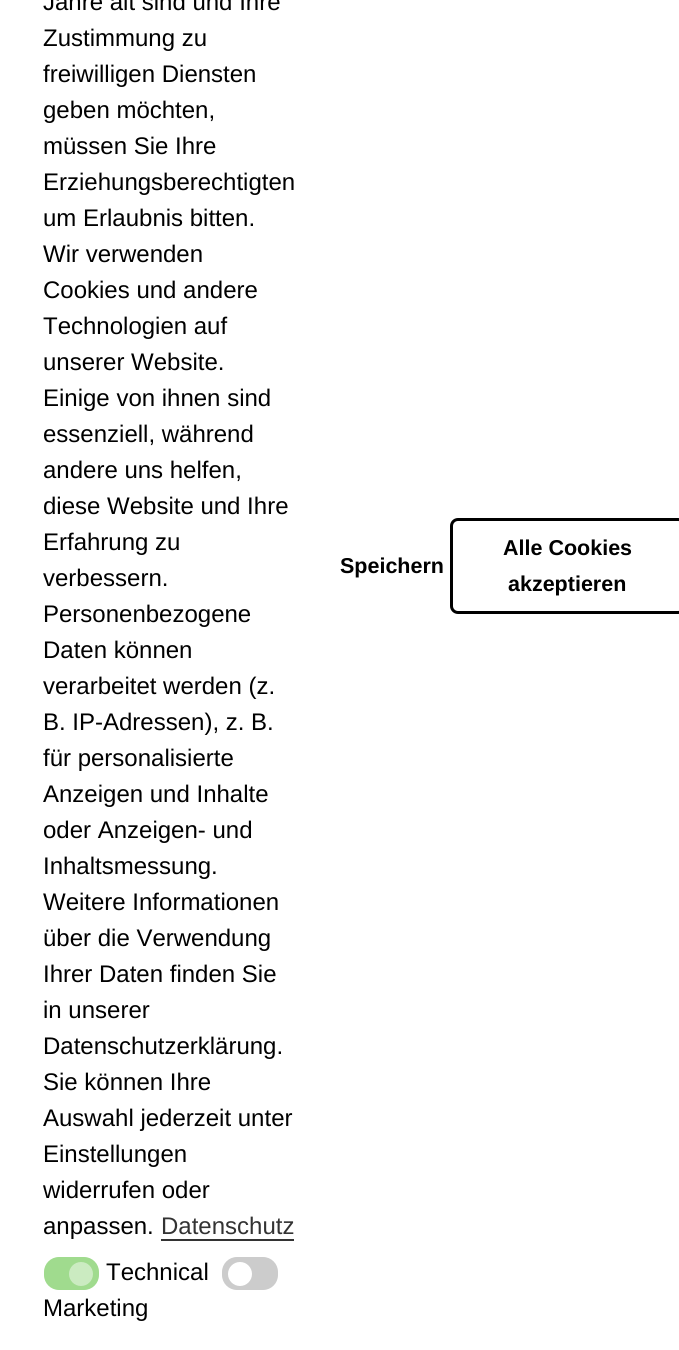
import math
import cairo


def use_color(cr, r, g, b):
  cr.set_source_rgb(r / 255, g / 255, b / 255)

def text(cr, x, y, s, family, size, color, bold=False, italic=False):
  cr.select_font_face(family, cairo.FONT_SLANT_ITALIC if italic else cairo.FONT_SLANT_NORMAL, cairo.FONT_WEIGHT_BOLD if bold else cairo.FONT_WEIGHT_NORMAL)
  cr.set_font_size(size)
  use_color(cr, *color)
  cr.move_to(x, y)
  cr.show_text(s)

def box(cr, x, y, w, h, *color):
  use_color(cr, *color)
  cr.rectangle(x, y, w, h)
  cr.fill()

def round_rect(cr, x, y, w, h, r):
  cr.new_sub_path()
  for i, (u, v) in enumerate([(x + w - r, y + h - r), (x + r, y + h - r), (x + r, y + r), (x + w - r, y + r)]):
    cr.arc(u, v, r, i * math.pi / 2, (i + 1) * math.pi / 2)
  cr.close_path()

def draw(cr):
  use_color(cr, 255, 255, 255)
  cr.paint()
  box(cr, 161, 1239, 133, 2, 51, 51, 51)
  use_color(cr, 160, 219, 142)
  round_rect(cr, 44, 1257, 55, 33, 15)
  cr.fill()
  use_color(cr, 203, 235, 193)
  cr.arc(81, 1274, 12, 0, 2 * math.pi)
  cr.fill()
  use_color(cr, 204, 204, 204)
  round_rect(cr, 222, 1257, 56, 33, 15)
  cr.fill()
  use_color(cr, 255, 255, 255)
  cr.arc(240, 1274, 12, 0, 2 * math.pi)
  cr.fill()
  round_rect(cr, 451.5, 519.5, 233, 93, 6.5)
  use_color(cr, 0, 0, 0)
  cr.set_line_width(3)
  cr.stroke()
  text(cr, 43, 10, "Jahre alt sind und Ihre", "Liberation Sans", 24, (0, 0, 0))
  text(cr, 43, 46, "Zustimmung zu", "Liberation Sans", 24, (0, 0, 0))
  text(cr, 43, 82, "freiwilligen Diensten", "Liberation Sans", 24, (0, 0, 0))
  text(cr, 43, 118, "geben möchten,", "Liberation Sans", 24, (0, 0, 0))
  text(cr, 43, 154, "müssen Sie Ihre", "Liberation Sans", 24, (0, 0, 0))
  text(cr, 43, 190, "Erziehungsberechtigten", "Liberation Sans", 24, (0, 0, 0))
  text(cr, 43, 226, "um Erlaubnis bitten.", "Liberation Sans", 24, (0, 0, 0))
  text(cr, 43, 262, "Wir verwenden", "Liberation Sans", 24, (0, 0, 0))
  text(cr, 43, 298, "Cookies und andere", "Liberation Sans", 24, (0, 0, 0))
  text(cr, 43, 334, "Technologien auf", "Liberation Sans", 24, (0, 0, 0))
  text(cr, 43, 370, "unserer Website.", "Liberation Sans", 24, (0, 0, 0))
  text(cr, 43, 406, "Einige von ihnen sind", "Liberation Sans", 24, (0, 0, 0))
  text(cr, 43, 442, "essenziell, während", "Liberation Sans", 24, (0, 0, 0))
  text(cr, 43, 478, "andere uns helfen,", "Liberation Sans", 24, (0, 0, 0))
  text(cr, 43, 514, "diese Website und Ihre", "Liberation Sans", 24, (0, 0, 0))
  text(cr, 43, 550, "Erfahrung zu", "Liberation Sans", 24, (0, 0, 0))
  text(cr, 43, 586, "verbessern.", "Liberation Sans", 24, (0, 0, 0))
  text(cr, 43, 622, "Personenbezogene", "Liberation Sans", 24, (0, 0, 0))
  text(cr, 43, 658, "Daten können", "Liberation Sans", 24, (0, 0, 0))
  text(cr, 43, 694, "verarbeitet werden (z.", "Liberation Sans", 24, (0, 0, 0))
  text(cr, 43, 730, "B. IP-Adressen), z. B.", "Liberation Sans", 24, (0, 0, 0))
  text(cr, 43, 766, "für personalisierte", "Liberation Sans", 24, (0, 0, 0))
  text(cr, 43, 802, "Anzeigen und Inhalte", "Liberation Sans", 24, (0, 0, 0))
  text(cr, 43, 838, "oder Anzeigen- und", "Liberation Sans", 24, (0, 0, 0))
  text(cr, 43, 874, "Inhaltsmessung.", "Liberation Sans", 24, (0, 0, 0))
  text(cr, 43, 910, "Weitere Informationen", "Liberation Sans", 24, (0, 0, 0))
  text(cr, 43, 946, "über die Verwendung", "Liberation Sans", 24, (0, 0, 0))
  text(cr, 43, 982, "Ihrer Daten finden Sie", "Liberation Sans", 24, (0, 0, 0))
  text(cr, 43, 1018, "in unserer", "Liberation Sans", 24, (0, 0, 0))
  text(cr, 43, 1054, "Datenschutzerklärung.", "Liberation Sans", 24, (0, 0, 0))
  text(cr, 43, 1090, "Sie können Ihre", "Liberation Sans", 24, (0, 0, 0))
  text(cr, 43, 1126, "Auswahl jederzeit unter", "Liberation Sans", 24, (0, 0, 0))
  text(cr, 43, 1162, "Einstellungen", "Liberation Sans", 24, (0, 0, 0))
  text(cr, 43, 1198, "widerrufen oder", "Liberation Sans", 24, (0, 0, 0))
  text(cr, 43, 1234, "anpassen.", "Liberation Sans", 24, (0, 0, 0))
  text(cr, 161, 1234, "Datenschutz", "Liberation Sans", 24, (51, 51, 51))
  text(cr, 106, 1280, "Technical", "Liberation Sans", 24, (0, 0, 0))
  text(cr, 43, 1316, "Marketing", "Liberation Sans", 24, (0, 0, 0))
  text(cr, 340, 573, "Speichern", "Liberation Sans", 21.5, (0, 0, 0), bold=True)
  text(cr, 503, 555, "Alle Cookies", "Liberation Sans", 21.5, (0, 0, 0), bold=True)
  text(cr, 508, 591, "akzeptieren", "Liberation Sans", 21.5, (0, 0, 0), bold=True)


surface = cairo.ImageSurface(cairo.FORMAT_RGB24, 679, 1350)
cr = cairo.Context(surface)
options = cairo.FontOptions()
options.set_hint_metrics(cairo.HINT_METRICS_OFF)
options.set_hint_style(cairo.HINT_STYLE_NONE)
cr.set_font_options(options)
cr.set_miter_limit(4)
draw(cr)
surface.write_to_png("out.png")
